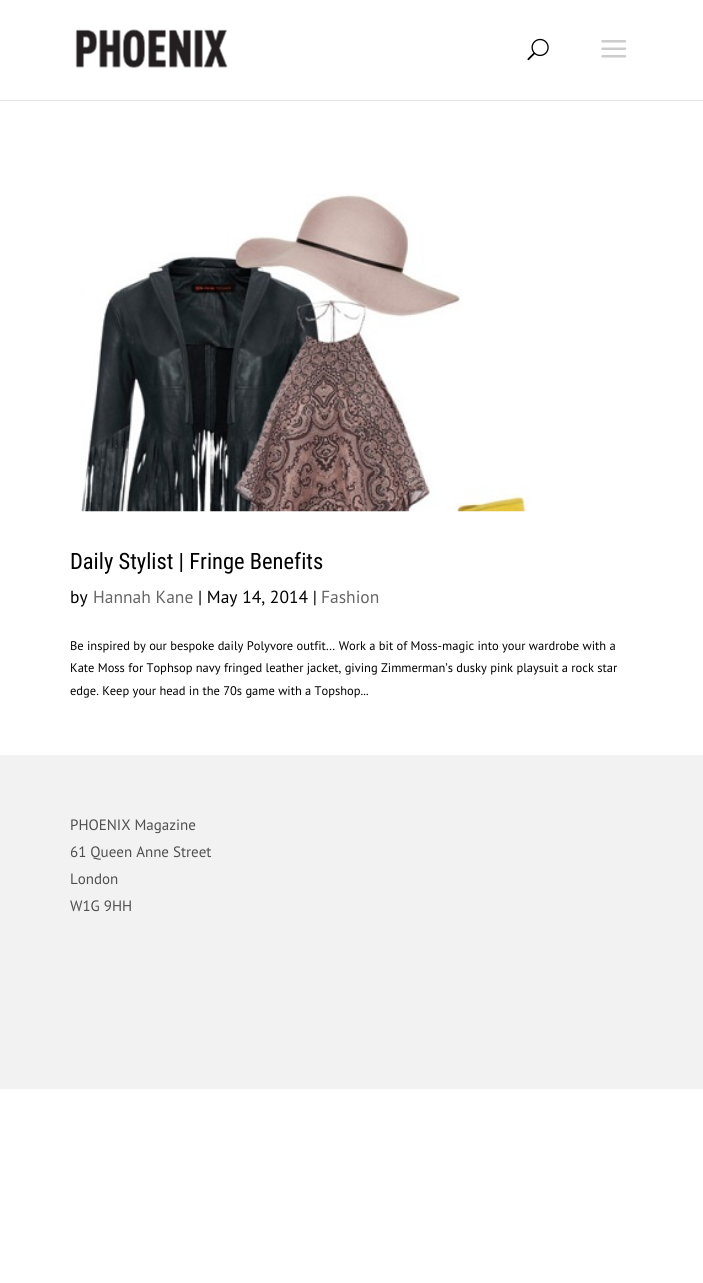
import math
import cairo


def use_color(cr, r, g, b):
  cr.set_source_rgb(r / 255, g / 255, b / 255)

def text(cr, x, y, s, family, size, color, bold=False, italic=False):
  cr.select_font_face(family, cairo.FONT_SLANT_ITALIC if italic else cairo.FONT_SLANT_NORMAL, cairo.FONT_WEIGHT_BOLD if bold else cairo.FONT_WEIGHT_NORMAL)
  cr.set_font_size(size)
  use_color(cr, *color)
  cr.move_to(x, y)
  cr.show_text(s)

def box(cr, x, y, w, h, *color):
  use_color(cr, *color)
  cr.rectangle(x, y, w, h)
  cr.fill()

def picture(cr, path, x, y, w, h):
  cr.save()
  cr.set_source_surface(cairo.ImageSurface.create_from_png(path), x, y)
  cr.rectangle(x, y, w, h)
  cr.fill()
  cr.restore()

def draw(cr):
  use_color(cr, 255, 255, 255)
  cr.paint()
  use_color(cr, 230, 230, 230)
  cr.new_path()
  cr.move_to(0, 100)
  cr.line_to(0, 101)
  cr.line_to(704, 101)
  cr.line_to(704, 1)
  cr.line_to(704, 100)
  cr.close_path()
  cr.fill()
  picture(cr, "img_01.png", 75, 29, 153, 39)
  picture(cr, "img_02.png", 527, 38, 22, 23)
  picture(cr, "img_03.png", 601, 40, 26, 18)
  picture(cr, "img_04.png", 80, 193, 451, 319)
  box(cr, 0, 755, 703, 334, 242, 242, 242)
  text(cr, 70, 569, "Daily Stylist | Fringe Benefits", "Roboto Condensed", 22.5, (0, 0, 0))
  text(cr, 70, 603, "by", "PT Sans", 17.5, (0, 0, 0))
  text(cr, 93, 603, "Hannah Kane", "PT Sans", 17.5, (102, 102, 102))
  text(cr, 198, 603, "| May 14, 2014 |", "PT Sans", 17.5, (0, 0, 0))
  text(cr, 321, 603, "Fashion", "PT Sans", 17.5, (102, 102, 102))
  text(cr, 70, 650, "Be inspired by our bespoke daily Polyvore outfit… Work a bit of Moss-magic into your wardrobe with a", "PT Sans", 12.5, (0, 0, 0))
  text(cr, 70, 672, "Kate Moss for Tophsop navy fringed leather jacket, giving Zimmerman’s dusky pink playsuit a rock star", "PT Sans", 12.5, (0, 0, 0))
  text(cr, 70, 695, "edge. Keep your head in the 70s game with a Topshop...", "PT Sans", 12.5, (0, 0, 0))
  text(cr, 70, 830, "PHOENIX Magazine", "PT Sans", 15, (79, 79, 79))
  text(cr, 70, 857, "61 Queen Anne Street", "PT Sans", 15, (79, 79, 79))
  text(cr, 70, 884, "London", "PT Sans", 15, (79, 79, 79))
  text(cr, 70, 911, "W1G 9HH", "PT Sans", 15, (79, 79, 79))


surface = cairo.ImageSurface(cairo.FORMAT_RGB24, 703, 1283)
cr = cairo.Context(surface)
options = cairo.FontOptions()
options.set_hint_metrics(cairo.HINT_METRICS_OFF)
options.set_hint_style(cairo.HINT_STYLE_NONE)
cr.set_font_options(options)
cr.set_miter_limit(4)
draw(cr)
surface.write_to_png("out.png")
